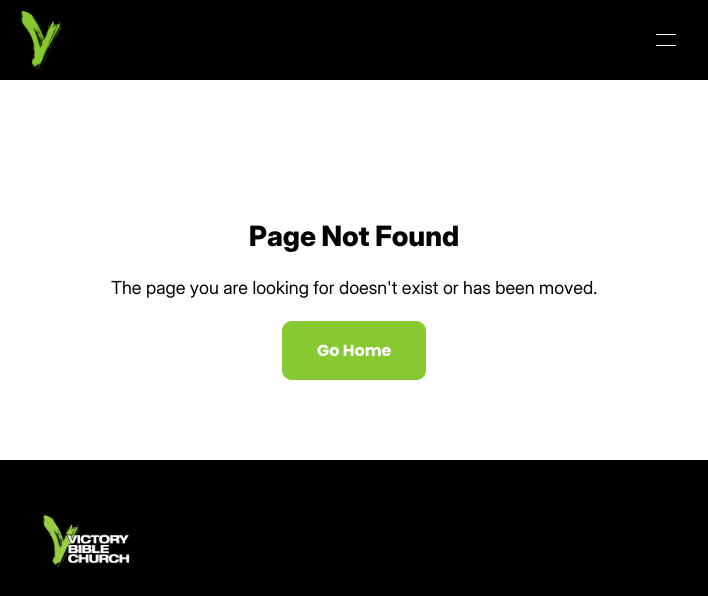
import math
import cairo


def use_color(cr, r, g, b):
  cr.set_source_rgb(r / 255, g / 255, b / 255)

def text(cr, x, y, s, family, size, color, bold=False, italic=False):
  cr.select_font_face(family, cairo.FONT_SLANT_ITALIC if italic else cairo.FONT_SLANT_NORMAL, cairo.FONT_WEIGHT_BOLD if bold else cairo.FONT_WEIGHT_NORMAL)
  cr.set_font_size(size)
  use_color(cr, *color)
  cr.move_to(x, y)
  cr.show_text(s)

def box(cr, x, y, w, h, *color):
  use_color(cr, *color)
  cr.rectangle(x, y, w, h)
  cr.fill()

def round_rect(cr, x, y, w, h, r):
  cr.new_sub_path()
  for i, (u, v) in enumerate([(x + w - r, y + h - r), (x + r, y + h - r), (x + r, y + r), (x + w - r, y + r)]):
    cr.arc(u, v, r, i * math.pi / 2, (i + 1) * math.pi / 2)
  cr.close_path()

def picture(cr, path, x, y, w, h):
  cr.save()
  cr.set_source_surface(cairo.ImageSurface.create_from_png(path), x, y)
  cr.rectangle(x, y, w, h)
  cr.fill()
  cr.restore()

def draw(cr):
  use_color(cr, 255, 255, 255)
  cr.paint()
  box(cr, 0, 0, 708, 80, 0, 0, 0)
  picture(cr, "img_01.png", 20, 10, 41, 60)
  box(cr, 656, 34, 20, 1, 255, 255, 255)
  box(cr, 656, 45, 20, 1, 255, 255, 255)
  use_color(cr, 135, 201, 48)
  round_rect(cr, 282, 321, 144, 59, 10)
  cr.fill()
  box(cr, 0, 460, 708, 136, 0, 0, 0)
  picture(cr, "img_02.png", 42, 514, 88, 54)
  text(cr, 249, 246, "Page Not Found", "Inter Display ExtraBold", 28, (0, 0, 0))
  text(cr, 111, 294, "The page you are looking for doesn't exist or has been moved.", "Inter Display", 18, (0, 0, 0))
  text(cr, 317, 356, "Go Home", "Poppins", 16, (255, 255, 255), bold=True)


surface = cairo.ImageSurface(cairo.FORMAT_RGB24, 708, 596)
cr = cairo.Context(surface)
options = cairo.FontOptions()
options.set_hint_metrics(cairo.HINT_METRICS_OFF)
options.set_hint_style(cairo.HINT_STYLE_NONE)
cr.set_font_options(options)
cr.set_miter_limit(4)
draw(cr)
surface.write_to_png("out.png")
